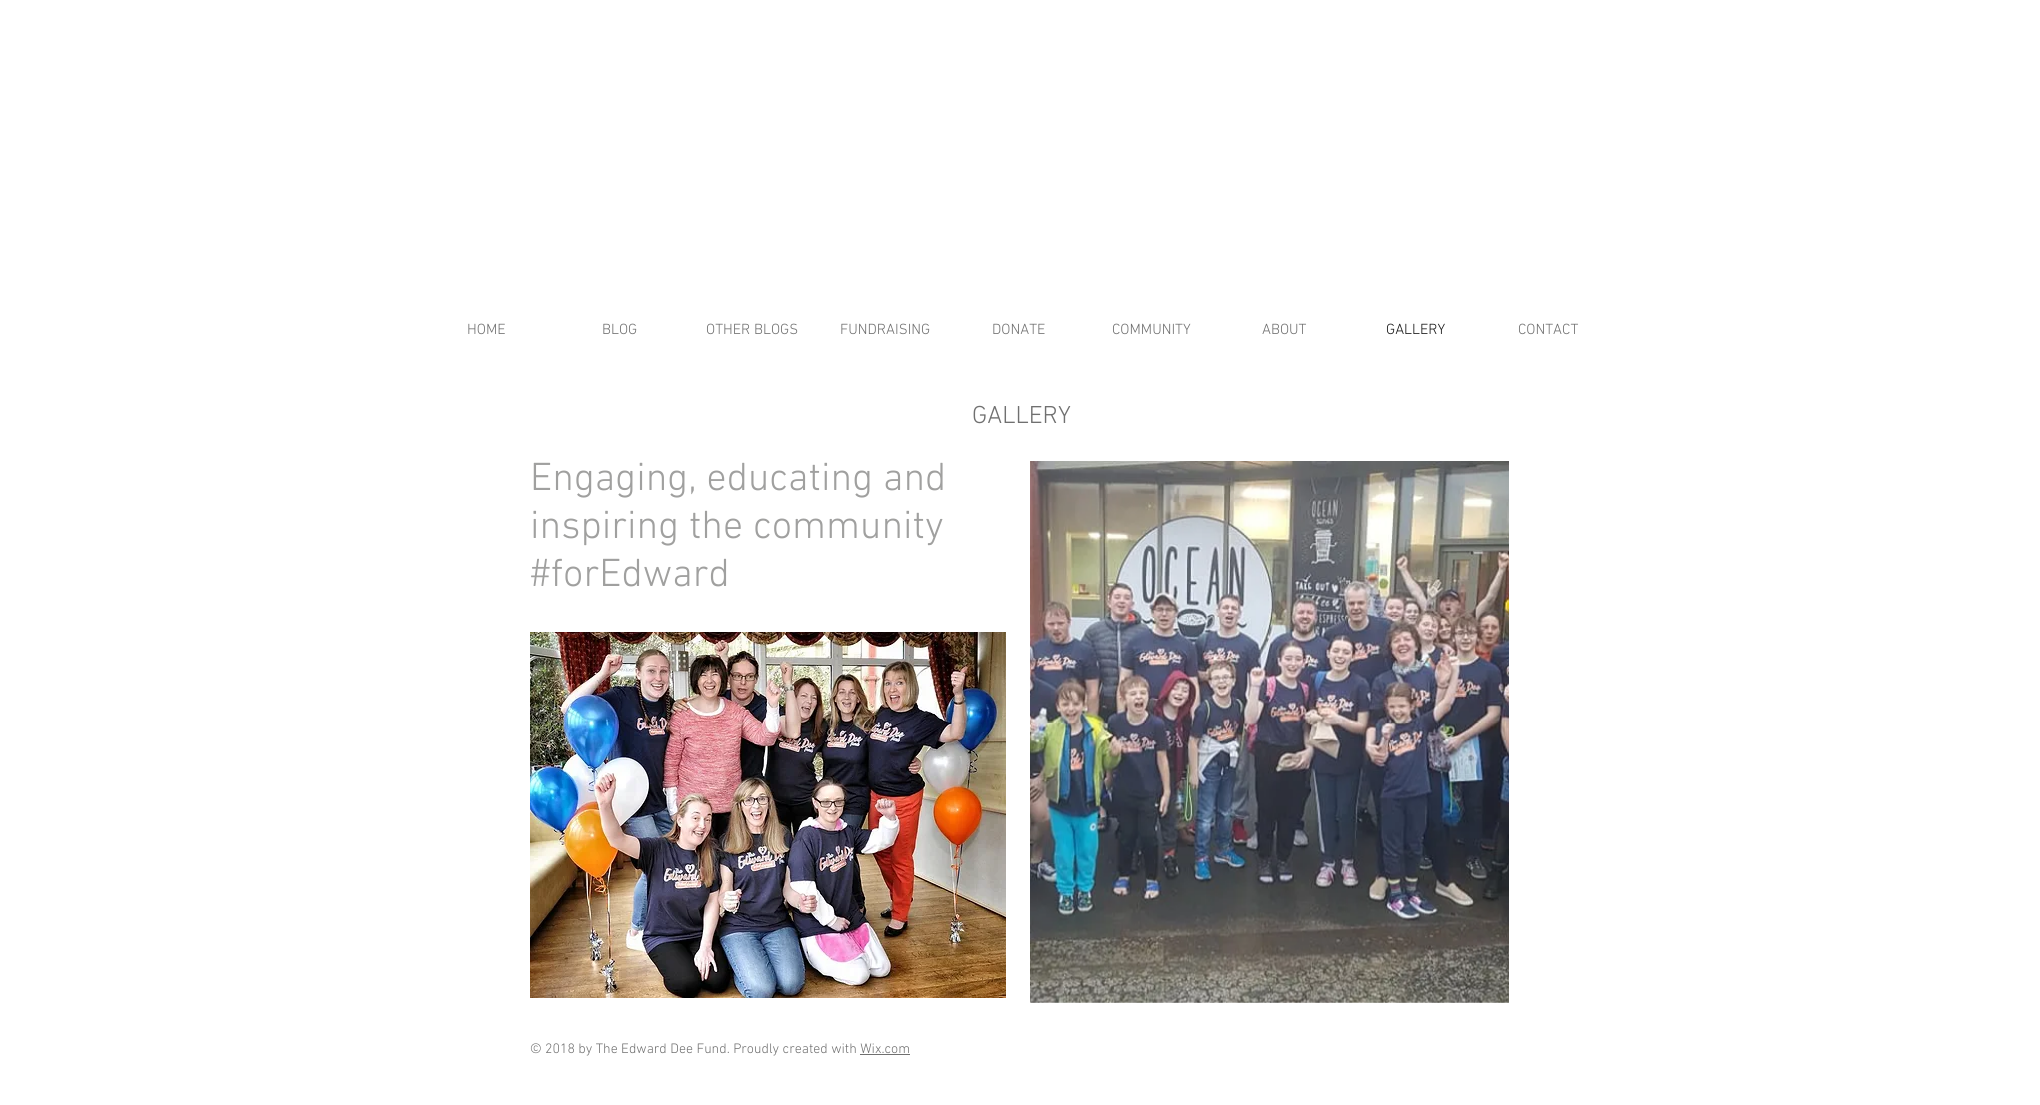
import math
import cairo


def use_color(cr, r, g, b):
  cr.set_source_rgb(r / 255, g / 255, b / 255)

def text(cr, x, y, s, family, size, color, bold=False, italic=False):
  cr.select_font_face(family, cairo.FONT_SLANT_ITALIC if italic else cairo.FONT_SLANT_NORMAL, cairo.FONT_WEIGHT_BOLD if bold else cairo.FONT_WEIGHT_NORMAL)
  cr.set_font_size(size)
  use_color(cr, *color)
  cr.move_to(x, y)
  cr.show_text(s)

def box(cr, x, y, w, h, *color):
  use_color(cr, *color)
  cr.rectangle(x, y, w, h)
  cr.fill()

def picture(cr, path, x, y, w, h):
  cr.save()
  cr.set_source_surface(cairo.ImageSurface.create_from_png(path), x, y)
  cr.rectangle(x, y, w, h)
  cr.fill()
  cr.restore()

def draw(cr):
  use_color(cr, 255, 255, 255)
  cr.paint()
  picture(cr, "img_01.png", 1030, 461, 479, 542)
  picture(cr, "img_02.png", 530, 632, 476, 366)
  box(cr, 860, 1054, 50, 1, 112, 112, 112)
  text(cr, 467, 334, "HOME", "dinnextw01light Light", 15, (112, 112, 112))
  text(cr, 602, 334, "BLOG", "dinnextw01light Light", 15, (112, 112, 112))
  text(cr, 706, 334, "OTHER BLOGS", "dinnextw01light Light", 15, (112, 112, 112))
  text(cr, 840, 334, "FUNDRAISING", "dinnextw01light Light", 15, (112, 112, 112))
  text(cr, 992, 334, "DONATE", "dinnextw01light Light", 15, (112, 112, 112))
  text(cr, 1112, 334, "COMMUNITY", "dinnextw01light Light", 15, (112, 112, 112))
  text(cr, 1262, 334, "ABOUT", "dinnextw01light Light", 15, (112, 112, 112))
  text(cr, 1386, 334, "GALLERY", "dinnextw01light Light", 15, (23, 23, 23))
  text(cr, 1518, 334, "CONTACT", "dinnextw01light Light", 15, (112, 112, 112))
  text(cr, 972, 423, "GALLERY", "dinnextw01light Light", 25, (112, 112, 112))
  text(cr, 530, 490, "Engaging, educating and", "dinnextw01light Light", 40, (160, 160, 159))
  text(cr, 530, 538, "inspiring the community", "dinnextw01light Light", 40, (160, 160, 159))
  text(cr, 530, 586, "#forEdward", "dinnextw01light Light", 40, (160, 160, 159))
  text(cr, 979, 985, "1/4", "Liberation Sans", 12, (143, 94, 40))
  text(cr, 530, 1053, "© 2018 by The Edward Dee Fund. Proudly created with Wix.com", "dinnextw01light Light", 14, (112, 112, 112))


surface = cairo.ImageSurface(cairo.FORMAT_RGB24, 2040, 1105)
cr = cairo.Context(surface)
options = cairo.FontOptions()
options.set_hint_metrics(cairo.HINT_METRICS_OFF)
options.set_hint_style(cairo.HINT_STYLE_NONE)
cr.set_font_options(options)
cr.set_miter_limit(4)
draw(cr)
surface.write_to_png("out.png")
